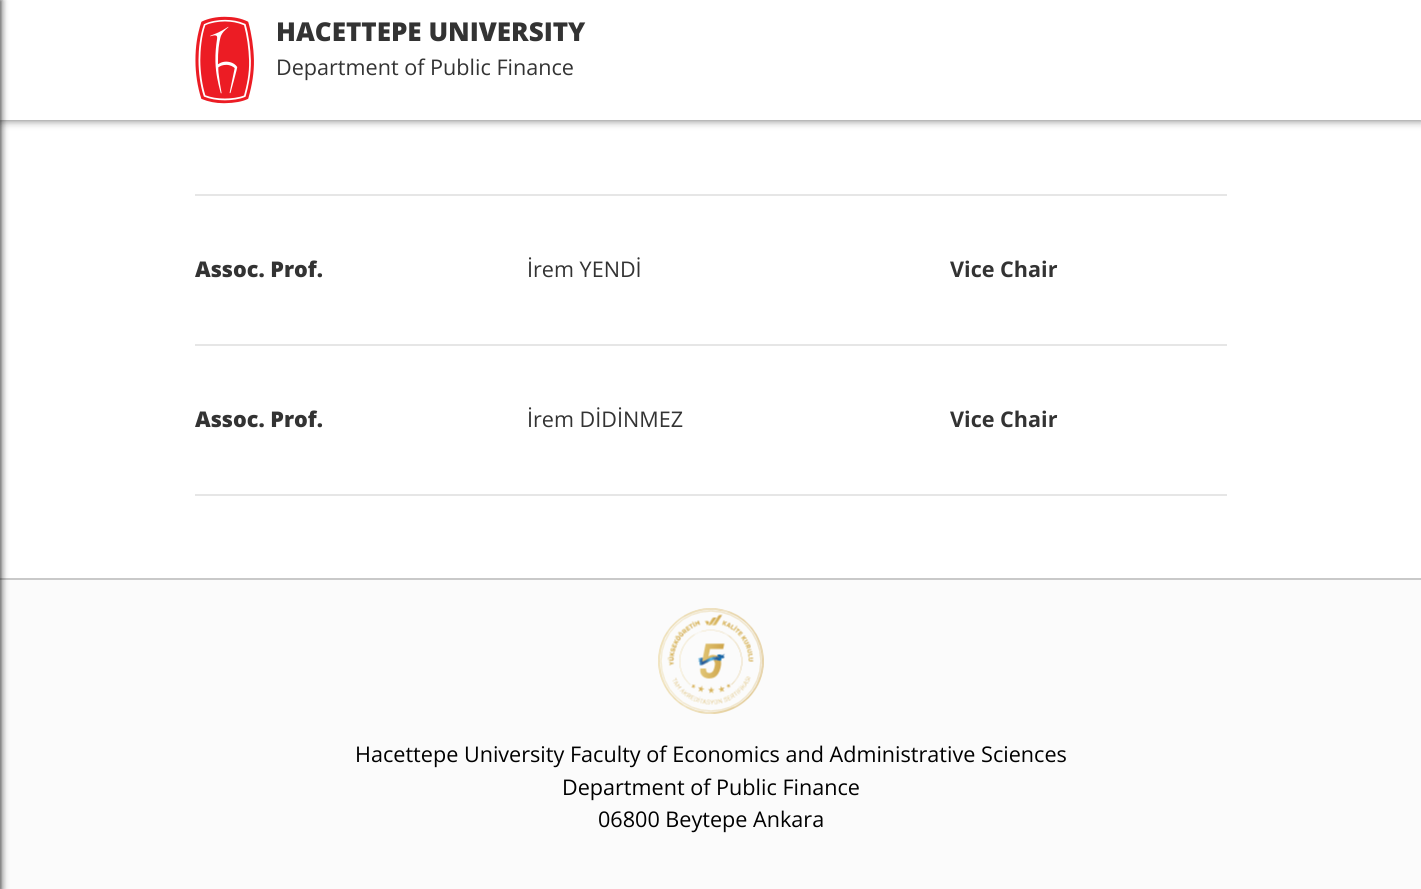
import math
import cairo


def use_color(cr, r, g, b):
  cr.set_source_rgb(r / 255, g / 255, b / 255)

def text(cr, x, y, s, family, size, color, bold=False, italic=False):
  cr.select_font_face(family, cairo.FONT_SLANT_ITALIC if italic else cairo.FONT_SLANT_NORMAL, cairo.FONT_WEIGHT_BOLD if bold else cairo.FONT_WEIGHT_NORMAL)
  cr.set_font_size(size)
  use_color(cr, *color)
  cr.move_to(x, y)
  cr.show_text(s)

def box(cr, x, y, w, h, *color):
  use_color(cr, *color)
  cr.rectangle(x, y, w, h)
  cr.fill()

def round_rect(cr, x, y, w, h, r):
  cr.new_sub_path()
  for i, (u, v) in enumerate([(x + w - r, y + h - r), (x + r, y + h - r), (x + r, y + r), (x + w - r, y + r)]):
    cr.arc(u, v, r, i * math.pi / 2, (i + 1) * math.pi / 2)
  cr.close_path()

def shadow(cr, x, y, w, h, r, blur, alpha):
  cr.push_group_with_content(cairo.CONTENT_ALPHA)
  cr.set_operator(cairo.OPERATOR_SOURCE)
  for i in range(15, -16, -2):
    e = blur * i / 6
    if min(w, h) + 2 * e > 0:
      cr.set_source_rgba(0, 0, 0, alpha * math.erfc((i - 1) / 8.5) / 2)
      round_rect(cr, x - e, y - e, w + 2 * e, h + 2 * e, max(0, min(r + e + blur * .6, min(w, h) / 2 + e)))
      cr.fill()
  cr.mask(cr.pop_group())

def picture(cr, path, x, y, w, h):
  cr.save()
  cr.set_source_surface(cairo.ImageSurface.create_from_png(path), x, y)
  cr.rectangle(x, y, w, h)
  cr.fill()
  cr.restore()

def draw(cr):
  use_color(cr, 255, 255, 255)
  cr.paint()
  use_color(cr, 0, 0, 0)
  shadow(cr, 0, 0, 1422, 120, 0, 4.5, 0.6)
  box(cr, 0, 0, 1421, 120, 255, 255, 255)
  box(cr, 0, 580, 1421, 309, 251, 251, 251)
  box(cr, 0, 578, 1421, 2, 201, 201, 201)
  use_color(cr, 0, 0, 0)
  shadow(cr, -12, 0, 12, 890, 0, 4, 1)
  picture(cr, "img_01.png", 195, 16, 59, 88)
  box(cr, 195, 194, 1032, 2, 230, 230, 230)
  box(cr, 195, 344, 1032, 2, 230, 230, 230)
  box(cr, 195, 494, 1032, 2, 230, 230, 230)
  picture(cr, "img_02.png", 658, 608, 106, 106)
  text(cr, 276, 41, "HACETTEPE UNIVERSITY", "Open Sans ExtraBold", 26, (51, 51, 51))
  text(cr, 276, 75, "Department of Public Finance", "Open Sans", 21.6, (51, 51, 51))
  text(cr, 195, 277, "Assoc. Prof.", "Open Sans ExtraBold", 21.6, (51, 51, 51))
  text(cr, 527, 277, "İrem YENDİ", "Open Sans", 21.6, (51, 51, 51))
  text(cr, 950, 277, "Vice Chair", "Open Sans", 21.6, (51, 51, 51), bold=True)
  text(cr, 195, 427, "Assoc. Prof.", "Open Sans ExtraBold", 21.6, (51, 51, 51))
  text(cr, 527, 427, "İrem DİDİNMEZ", "Open Sans", 21.6, (51, 51, 51))
  text(cr, 950, 427, "Vice Chair", "Open Sans", 21.6, (51, 51, 51), bold=True)
  text(cr, 355, 762, "Hacettepe University Faculty of Economics and Administrative Sciences", "Open Sans", 21.6, (0, 0, 0))
  text(cr, 562, 795, "Department of Public Finance", "Open Sans", 21.6, (0, 0, 0))
  text(cr, 598, 827, "06800 Beytepe Ankara", "Open Sans", 21.6, (0, 0, 0))


surface = cairo.ImageSurface(cairo.FORMAT_RGB24, 1421, 889)
cr = cairo.Context(surface)
options = cairo.FontOptions()
options.set_hint_metrics(cairo.HINT_METRICS_OFF)
options.set_hint_style(cairo.HINT_STYLE_NONE)
cr.set_font_options(options)
cr.set_miter_limit(4)
draw(cr)
surface.write_to_png("out.png")
